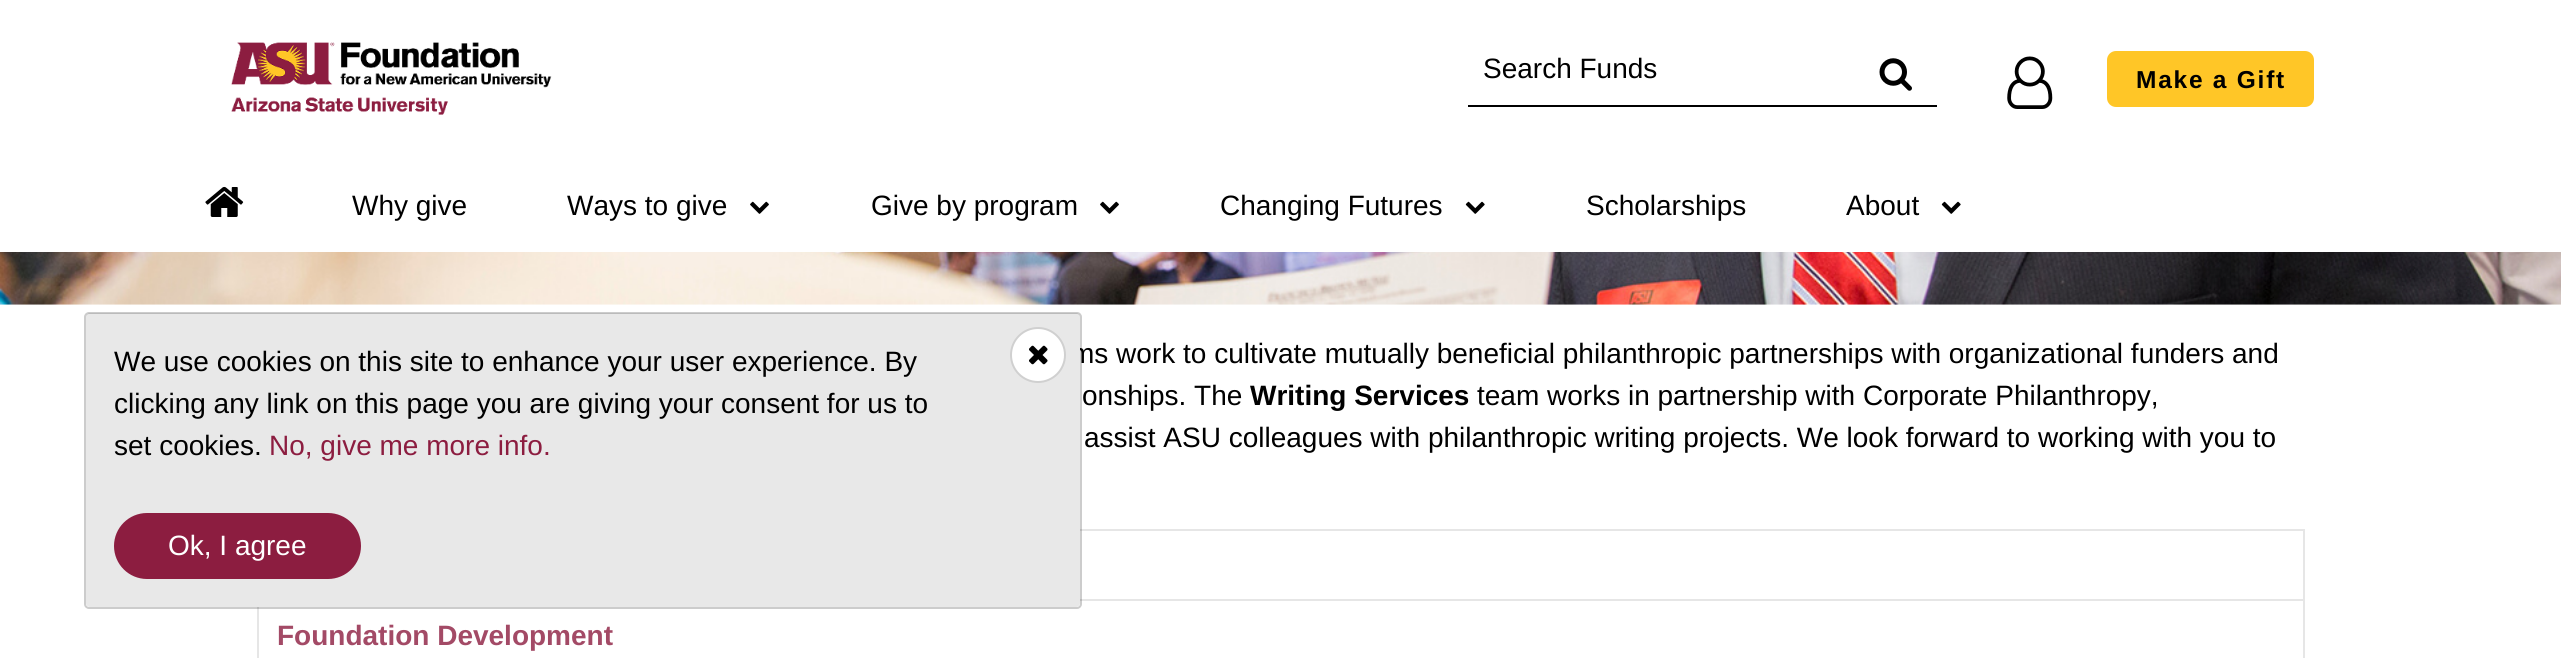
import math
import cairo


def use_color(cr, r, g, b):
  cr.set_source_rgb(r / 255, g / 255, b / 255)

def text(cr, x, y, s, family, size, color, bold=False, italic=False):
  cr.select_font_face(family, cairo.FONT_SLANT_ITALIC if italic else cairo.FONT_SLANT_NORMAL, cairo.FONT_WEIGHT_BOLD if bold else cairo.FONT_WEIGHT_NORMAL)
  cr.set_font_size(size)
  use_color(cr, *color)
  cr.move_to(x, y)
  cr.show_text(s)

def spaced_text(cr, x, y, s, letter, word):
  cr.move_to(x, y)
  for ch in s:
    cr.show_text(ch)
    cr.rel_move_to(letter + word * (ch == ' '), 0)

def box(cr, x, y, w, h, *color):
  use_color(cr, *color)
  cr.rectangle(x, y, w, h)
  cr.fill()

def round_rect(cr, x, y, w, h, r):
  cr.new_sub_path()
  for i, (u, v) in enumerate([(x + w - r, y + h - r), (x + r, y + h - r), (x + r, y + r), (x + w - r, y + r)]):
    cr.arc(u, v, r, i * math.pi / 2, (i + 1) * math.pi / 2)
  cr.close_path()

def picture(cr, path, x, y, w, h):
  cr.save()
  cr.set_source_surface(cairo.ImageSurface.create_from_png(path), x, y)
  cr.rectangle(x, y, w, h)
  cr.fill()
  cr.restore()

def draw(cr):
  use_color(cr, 255, 255, 255)
  cr.paint()
  picture(cr, "img_01.png", 231, 42, 321, 73)
  box(cr, 1468, 105, 469, 2, 0, 0, 0)
  picture(cr, "img_02.png", 1879, 58, 33, 33)
  picture(cr, "img_03.png", 2007, 56, 46, 53)
  use_color(cr, 255, 198, 39)
  round_rect(cr, 2107, 51, 207, 56, 9)
  cr.fill()
  picture(cr, "img_04.png", 205, 186, 39, 31)
  picture(cr, "img_05.png", 750, 201, 19, 13)
  picture(cr, "img_05.png", 1100, 201, 19, 13)
  picture(cr, "img_06.png", 1465, 201, 20, 13)
  picture(cr, "img_06.png", 1941, 201, 20, 13)
  picture(cr, "img_07.png", 0, 252, 2561, 53)
  box(cr, 1080, 529, 1225, 2, 230, 230, 230)
  box(cr, 2303, 529, 2, 70, 230, 230, 230)
  box(cr, 1080, 599, 1225, 2, 230, 230, 230)
  box(cr, 2303, 599, 2, 59, 230, 230, 230)
  box(cr, 257, 599, 2, 59, 230, 230, 230)
  text(cr, 1483, 78, "Search Funds", "Liberation Sans", 28, (0, 0, 0))
  cr.select_font_face("Liberation Sans", cairo.FONT_SLANT_NORMAL, cairo.FONT_WEIGHT_BOLD)
  cr.set_font_size(24.5)
  spaced_text(cr, 2136, 88, "Make a Gift", 1.75, 0)
  text(cr, 352, 215, "Why give", "Liberation Sans", 28, (0, 0, 0))
  text(cr, 567, 215, "Ways to give", "Liberation Sans", 28, (0, 0, 0))
  text(cr, 871, 215, "Give by program", "Liberation Sans", 28, (0, 0, 0))
  text(cr, 1220, 215, "Changing Futures", "Liberation Sans", 28, (0, 0, 0))
  text(cr, 1586, 215, "Scholarships", "Liberation Sans", 28, (0, 0, 0))
  text(cr, 1846, 215, "About", "Liberation Sans", 28, (0, 0, 0))
  text(cr, 1071, 363, "ms work to cultivate mutually beneficial philanthropic partnerships with organizational funders and", "Liberation Sans", 28, (0, 0, 0))
  text(cr, 1082, 405, "onships. The", "Liberation Sans", 28, (0, 0, 0))
  text(cr, 1250, 405, "Writing Services", "Liberation Sans", 28, (0, 0, 0), bold=True)
  text(cr, 1477, 405, "team works in partnership with Corporate Philanthropy,", "Liberation Sans", 28, (0, 0, 0))
  text(cr, 1084, 447, "assist ASU colleagues with philanthropic writing projects. We look forward to working with you to", "Liberation Sans", 28, (0, 0, 0))
  text(cr, 277, 645, "Foundation Development", "Liberation Sans", 28, (163, 74, 102), bold=True)
  use_color(cr, 232, 232, 232)
  round_rect(cr, 86, 313, 994, 294, 4)
  cr.fill()
  round_rect(cr, 85, 313, 996, 295, 4)
  cr.set_source_rgba(0, 0, 0, 0.2)
  cr.stroke()
  text(cr, 114, 371, "We use cookies on this site to enhance your user experience. By", "Liberation Sans", 28, (0, 0, 0))
  text(cr, 114, 413, "clicking any link on this page you are giving your consent for us to", "Liberation Sans", 28, (0, 0, 0))
  text(cr, 114, 455, "set cookies.", "Liberation Sans", 28, (0, 0, 0))
  text(cr, 269, 455, "No, give me more info.", "Liberation Sans", 28, (140, 29, 64))
  use_color(cr, 255, 255, 255)
  cr.new_path()
  cr.arc(1038, 355, 27, 0, 2 * math.pi)
  cr.fill_preserve()
  use_color(cr, 208, 208, 208)
  cr.stroke()
  picture(cr, "img_08.png", 1029, 345, 19, 20)
  use_color(cr, 140, 29, 64)
  round_rect(cr, 115, 514, 245, 64, 32)
  cr.fill_preserve()
  cr.stroke()
  text(cr, 168, 555, "Ok, I agree", "Liberation Sans", 28, (255, 255, 255))


surface = cairo.ImageSurface(cairo.FORMAT_RGB24, 2561, 658)
cr = cairo.Context(surface)
options = cairo.FontOptions()
options.set_hint_metrics(cairo.HINT_METRICS_OFF)
options.set_hint_style(cairo.HINT_STYLE_NONE)
cr.set_font_options(options)
cr.set_miter_limit(4)
draw(cr)
surface.write_to_png("out.png")
